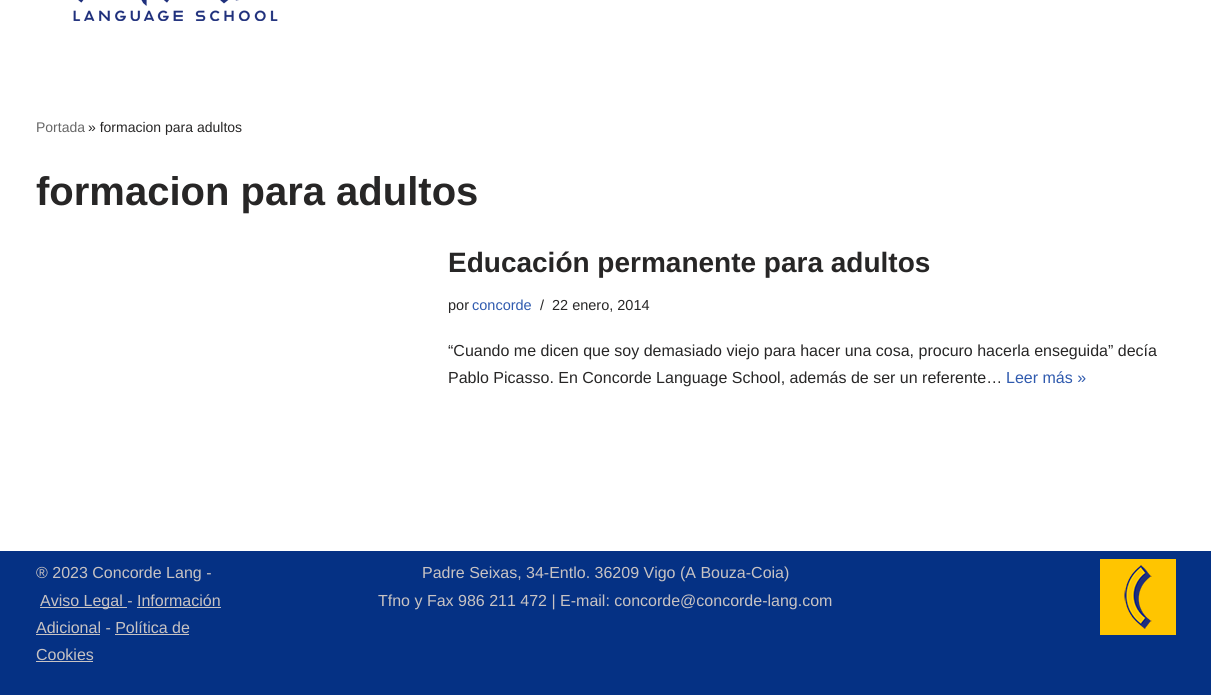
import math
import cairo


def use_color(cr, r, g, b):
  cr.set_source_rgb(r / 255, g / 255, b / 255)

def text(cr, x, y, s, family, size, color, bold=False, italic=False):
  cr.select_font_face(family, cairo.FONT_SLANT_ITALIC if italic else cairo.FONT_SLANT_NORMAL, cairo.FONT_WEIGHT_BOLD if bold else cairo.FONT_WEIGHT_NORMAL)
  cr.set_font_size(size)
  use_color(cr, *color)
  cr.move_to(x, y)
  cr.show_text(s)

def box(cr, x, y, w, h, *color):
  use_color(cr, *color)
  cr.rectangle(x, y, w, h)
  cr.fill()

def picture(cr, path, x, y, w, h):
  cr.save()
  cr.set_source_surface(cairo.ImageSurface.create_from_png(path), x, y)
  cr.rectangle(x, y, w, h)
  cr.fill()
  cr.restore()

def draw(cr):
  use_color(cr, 255, 255, 255)
  cr.paint()
  picture(cr, "img_01.png", 73, 0, 205, 21)
  box(cr, 0, 551, 1211, 144, 5, 49, 132)
  box(cr, 40, 607, 87, 1, 200, 195, 195)
  box(cr, 137, 607, 84, 1, 200, 195, 195)
  box(cr, 36, 634, 64, 1, 200, 195, 195)
  box(cr, 115, 634, 74, 1, 200, 195, 195)
  box(cr, 36, 661, 57, 1, 200, 195, 195)
  picture(cr, "img_02.png", 1100, 559, 76, 76)
  text(cr, 36, 132, "Portada", "Liberation Sans", 14, (103, 103, 103))
  text(cr, 88, 132, "» formacion para adultos", "Liberation Sans", 14, (39, 38, 38))
  text(cr, 36, 205, "formacion para adultos", "Liberation Sans", 40, (39, 38, 38), bold=True)
  text(cr, 448, 272, "Educación permanente para adultos", "Liberation Sans", 28, (39, 38, 38), bold=True)
  text(cr, 448, 310, "por", "Liberation Sans", 14.5, (39, 38, 38))
  text(cr, 472, 310, "concorde", "Liberation Sans", 14.5, (47, 90, 174))
  text(cr, 540, 310, "/", "Liberation Sans", 14.5, (39, 38, 38))
  text(cr, 552, 310, "22 enero, 2014", "Liberation Sans", 14.5, (39, 38, 38))
  text(cr, 448, 356, "“Cuando me dicen que soy demasiado viejo para hacer una cosa, procuro hacerla enseguida” decía", "Liberation Sans", 16, (39, 38, 38))
  text(cr, 448, 383, "Pablo Picasso. En Concorde Language School, además de ser un referente…", "Liberation Sans", 16, (39, 38, 38))
  text(cr, 1006, 383, "Leer más »", "Liberation Sans", 16, (47, 90, 174))
  text(cr, 36, 578, "® 2023 Concorde Lang -", "Liberation Sans", 16, (200, 195, 195))
  text(cr, 40, 606, "Aviso Legal - Información", "Liberation Sans", 16, (200, 195, 195))
  text(cr, 36, 633, "Adicional - Política de", "Liberation Sans", 16, (200, 195, 195))
  text(cr, 36, 660, "Cookies", "Liberation Sans", 16, (200, 195, 195))
  text(cr, 422, 578, "Padre Seixas, 34-Entlo. 36209 Vigo (A Bouza-Coia)", "Liberation Sans", 16, (200, 195, 195))
  text(cr, 378, 606, "Tfno y Fax 986 211 472 | E-mail: concorde@concorde-lang.com", "Liberation Sans", 16, (200, 195, 195))


surface = cairo.ImageSurface(cairo.FORMAT_RGB24, 1211, 695)
cr = cairo.Context(surface)
options = cairo.FontOptions()
options.set_hint_metrics(cairo.HINT_METRICS_OFF)
options.set_hint_style(cairo.HINT_STYLE_NONE)
cr.set_font_options(options)
cr.set_miter_limit(4)
draw(cr)
surface.write_to_png("out.png")
